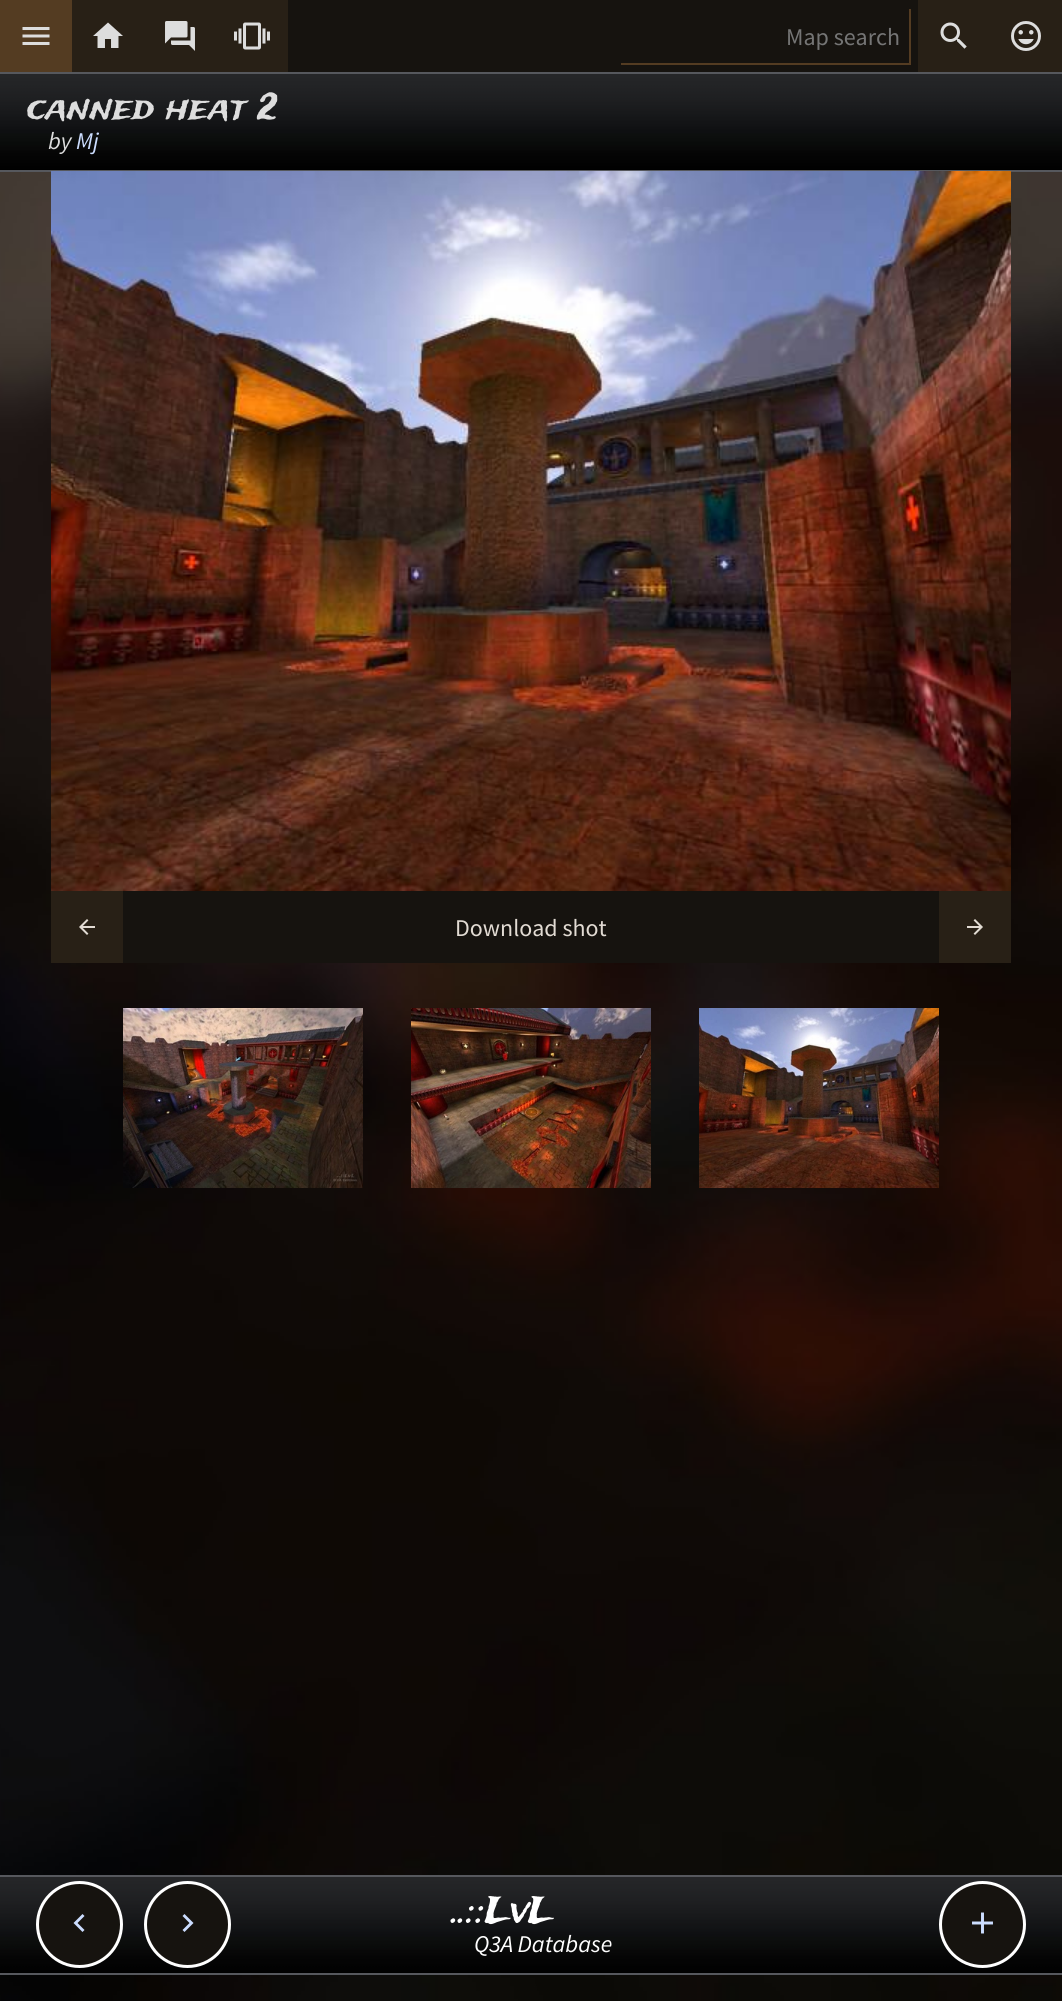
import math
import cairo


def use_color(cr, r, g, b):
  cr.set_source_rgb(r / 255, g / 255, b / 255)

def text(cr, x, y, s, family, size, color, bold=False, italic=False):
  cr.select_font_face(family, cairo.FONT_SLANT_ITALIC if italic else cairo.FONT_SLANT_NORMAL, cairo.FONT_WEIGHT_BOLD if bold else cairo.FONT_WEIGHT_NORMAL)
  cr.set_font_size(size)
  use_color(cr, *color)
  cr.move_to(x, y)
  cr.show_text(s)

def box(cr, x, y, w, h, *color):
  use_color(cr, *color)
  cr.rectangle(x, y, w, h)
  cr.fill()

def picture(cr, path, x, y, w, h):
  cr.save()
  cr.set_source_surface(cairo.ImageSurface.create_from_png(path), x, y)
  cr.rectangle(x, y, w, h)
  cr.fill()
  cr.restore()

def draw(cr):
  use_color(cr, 255, 255, 255)
  cr.paint()
  box(cr, 288, 0, 630, 72, 22, 19, 15)
  box(cr, 0, 0, 72, 72, 84, 60, 34)
  picture(cr, "img_01.png", 22, 27, 28, 18)
  box(cr, 72, 0, 216, 72, 40, 32, 22)
  picture(cr, "img_02.png", 93, 22, 30, 26)
  box(cr, 918, 0, 144, 72, 40, 32, 22)
  picture(cr, "img_03.png", 940, 22, 27, 27)
  picture(cr, "img_04.png", 1011, 21, 30, 30)
  picture(cr, "img_05.png", 165, 21, 30, 30)
  picture(cr, "img_06.png", 234, 22, 36, 28)
  box(cr, 909, 9, 2, 56, 84, 60, 34)
  box(cr, 621, 63, 290, 2, 84, 60, 34)
  picture(cr, "img_07.png", 0, 74, 1062, 96)
  box(cr, 0, 72, 1062, 2, 86, 88, 93)
  box(cr, 0, 170, 1062, 2, 86, 88, 93)
  picture(cr, "img_08.png", 0, 172, 1062, 1829)
  picture(cr, "img_09.png", 51, 171, 960, 720)
  box(cr, 123, 891, 816, 72, 22, 19, 15)
  box(cr, 51, 891, 72, 72, 40, 32, 22)
  picture(cr, "img_10.png", 79, 919, 16, 16)
  box(cr, 939, 891, 72, 72, 40, 32, 22)
  picture(cr, "img_11.png", 967, 919, 16, 16)
  picture(cr, "img_12.png", 123, 1008, 240, 180)
  picture(cr, "img_13.png", 411, 1008, 240, 180)
  picture(cr, "img_14.png", 699, 1008, 240, 180)
  picture(cr, "img_16.png", 0, 1877, 1062, 96)
  use_color(cr, 22, 19, 15)
  cr.arc(79.5, 1924.5, 42, 0, 2 * math.pi)
  cr.fill_preserve()
  use_color(cr, 255, 255, 255)
  cr.set_line_width(3)
  cr.stroke()
  use_color(cr, 204, 221, 255)
  cr.new_path()
  cr.move_to(84.5, 1916)
  cr.line_to(77.5, 1923)
  cr.line_to(84.5, 1930)
  cr.line_to(82.5, 1932)
  cr.line_to(73.5, 1923)
  cr.line_to(82.5, 1914)
  cr.close_path()
  cr.fill()
  use_color(cr, 22, 19, 15)
  cr.arc(187.5, 1924.5, 42, 0, 2 * math.pi)
  cr.fill_preserve()
  use_color(cr, 255, 255, 255)
  cr.stroke()
  use_color(cr, 204, 221, 255)
  cr.new_path()
  cr.move_to(184.5, 1914)
  cr.line_to(193.5, 1923)
  cr.line_to(184.5, 1932)
  cr.line_to(182.5, 1930)
  cr.line_to(189.5, 1923)
  cr.line_to(182.5, 1916)
  cr.close_path()
  cr.fill()
  use_color(cr, 22, 19, 15)
  cr.arc(982.5, 1924.5, 42, 0, 2 * math.pi)
  cr.fill_preserve()
  use_color(cr, 255, 255, 255)
  cr.stroke()
  picture(cr, "img_15.png", 972, 1912, 21, 22)
  box(cr, 0, 1875, 1062, 2, 86, 88, 93)
  box(cr, 0, 1973, 1062, 2, 86, 88, 93)
  text(cr, 786, 45, "Map search", "Source Sans Pro", 24, (117, 117, 117))
  text(cr, 27, 119, "canned heat 2", "Trade Winds", 36, (221, 221, 221))
  text(cr, 48, 149, "by", "Source Sans Pro", 24, (221, 221, 221), italic=True)
  text(cr, 76, 149, "Mj", "Source Sans Pro", 24, (204, 221, 255), italic=True)
  text(cr, 455, 936, "Download shot", "Source Sans Pro", 24, (226, 219, 211))
  text(cr, 453, 1922, "..::LvL", "Trade Winds", 36, (255, 255, 255))
  text(cr, 474, 1952, "Q3A Database", "Source Sans Pro", 24, (255, 255, 255), italic=True)


surface = cairo.ImageSurface(cairo.FORMAT_RGB24, 1062, 2001)
cr = cairo.Context(surface)
options = cairo.FontOptions()
options.set_hint_metrics(cairo.HINT_METRICS_OFF)
options.set_hint_style(cairo.HINT_STYLE_NONE)
cr.set_font_options(options)
cr.set_miter_limit(4)
draw(cr)
surface.write_to_png("out.png")
